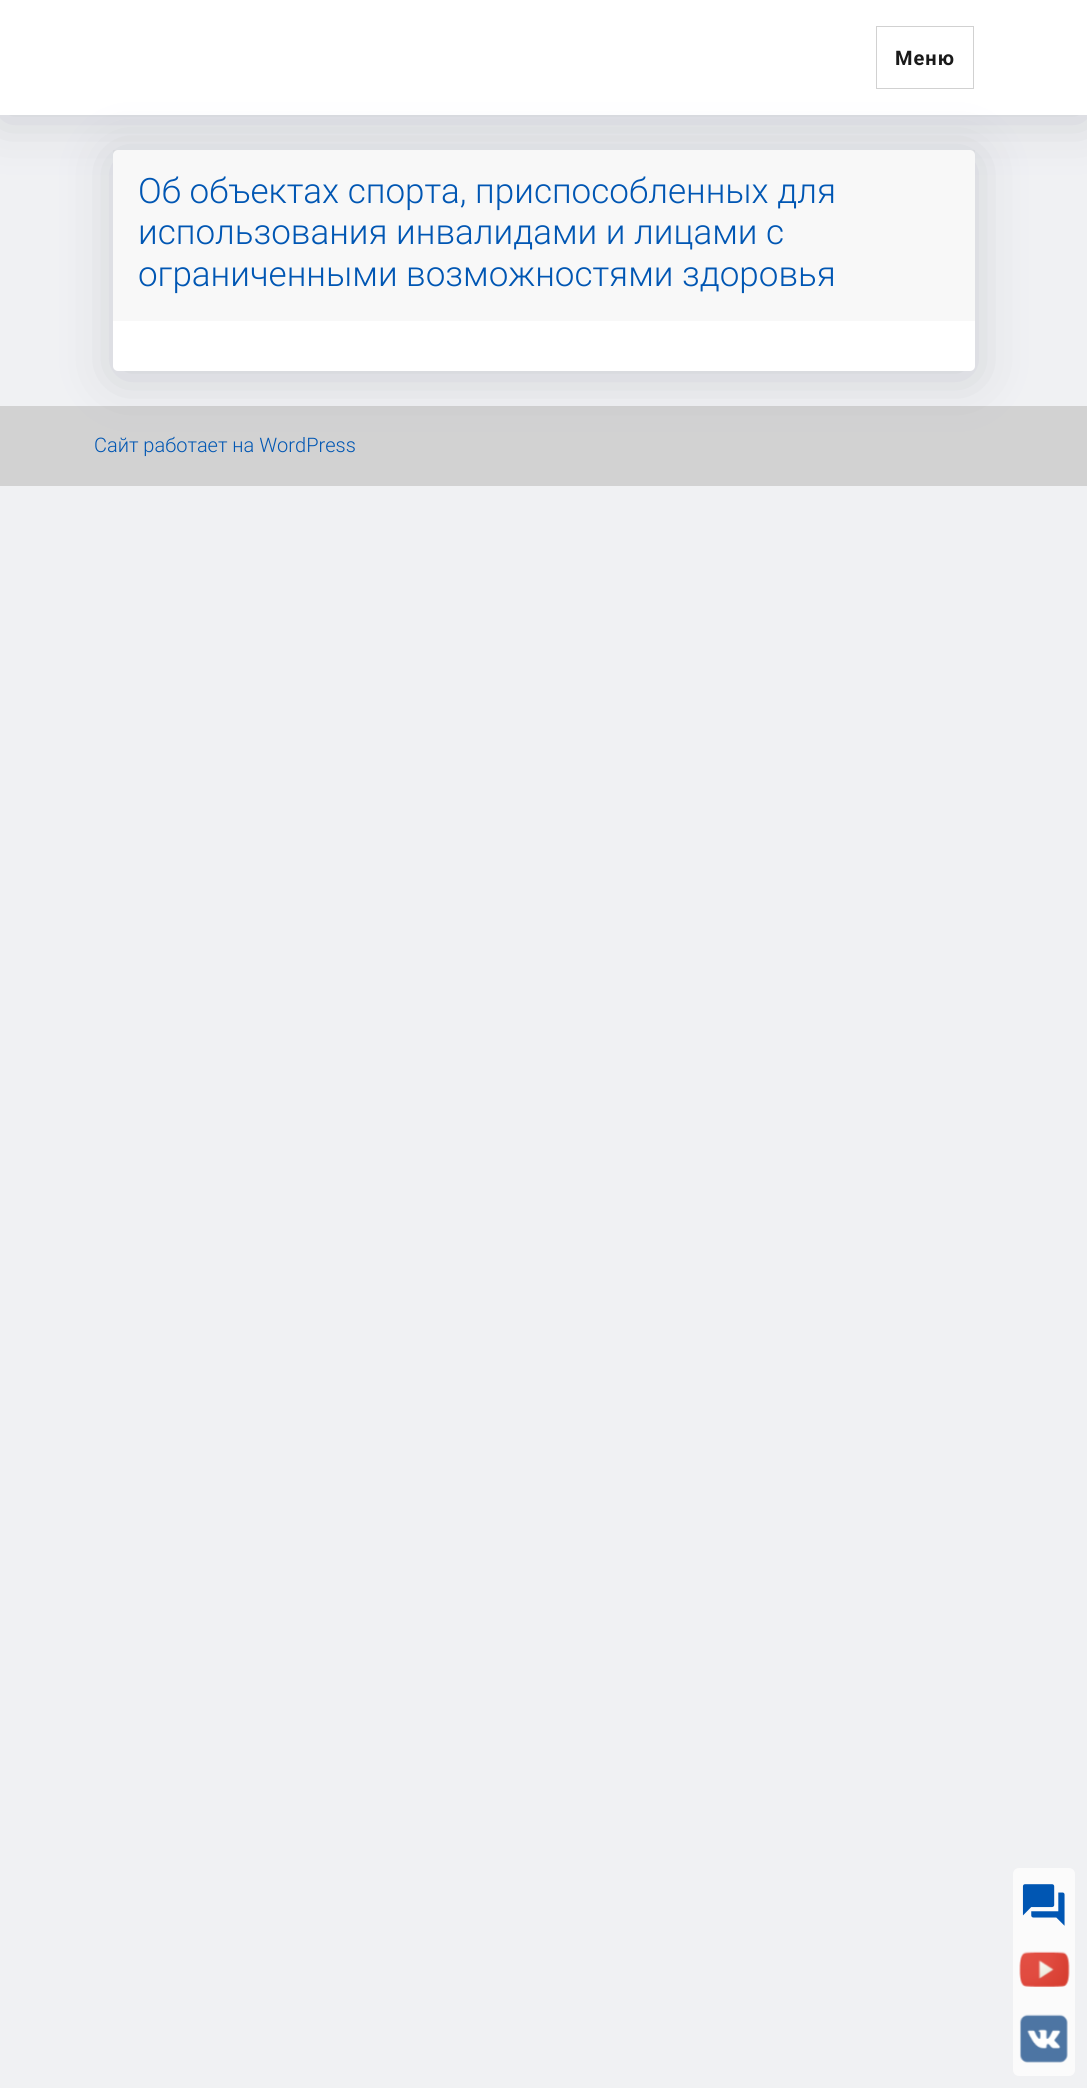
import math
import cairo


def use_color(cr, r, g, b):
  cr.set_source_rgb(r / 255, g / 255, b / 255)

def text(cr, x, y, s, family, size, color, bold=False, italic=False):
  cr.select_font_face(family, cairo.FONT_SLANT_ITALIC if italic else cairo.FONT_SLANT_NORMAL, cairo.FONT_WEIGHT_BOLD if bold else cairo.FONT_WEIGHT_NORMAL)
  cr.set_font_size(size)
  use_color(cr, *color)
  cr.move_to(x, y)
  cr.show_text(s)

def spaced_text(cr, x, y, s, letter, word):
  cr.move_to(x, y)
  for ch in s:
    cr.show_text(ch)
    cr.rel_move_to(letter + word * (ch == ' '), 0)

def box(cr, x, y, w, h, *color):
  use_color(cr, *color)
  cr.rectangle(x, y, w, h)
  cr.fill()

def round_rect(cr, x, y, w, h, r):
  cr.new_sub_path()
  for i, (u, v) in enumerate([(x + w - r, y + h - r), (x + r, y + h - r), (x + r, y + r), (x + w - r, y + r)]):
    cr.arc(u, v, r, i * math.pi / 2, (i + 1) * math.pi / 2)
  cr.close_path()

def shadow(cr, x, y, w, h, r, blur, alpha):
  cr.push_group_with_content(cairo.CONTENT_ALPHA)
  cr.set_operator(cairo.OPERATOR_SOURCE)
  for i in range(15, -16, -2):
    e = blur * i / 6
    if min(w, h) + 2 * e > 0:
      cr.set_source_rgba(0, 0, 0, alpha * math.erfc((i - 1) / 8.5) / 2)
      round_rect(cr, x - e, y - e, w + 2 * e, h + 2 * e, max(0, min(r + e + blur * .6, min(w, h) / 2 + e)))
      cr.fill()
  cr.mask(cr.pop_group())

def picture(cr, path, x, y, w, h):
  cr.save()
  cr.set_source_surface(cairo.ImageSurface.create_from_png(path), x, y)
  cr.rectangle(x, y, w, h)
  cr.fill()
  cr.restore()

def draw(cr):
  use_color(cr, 240, 241, 243)
  cr.paint()
  use_color(cr, 119, 123, 140)
  shadow(cr, 0, 6, 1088, 115, 0, 25, 0.3)
  box(cr, 0, 0, 1087, 115, 255, 255, 255)
  cr.rectangle(876.5, 26.5, 97, 62)
  use_color(cr, 209, 209, 209)
  cr.set_line_width(1)
  cr.stroke()
  box(cr, 0, 406, 1087, 80, 210, 210, 210)
  use_color(cr, 119, 123, 140)
  shadow(cr, 113, 156, 862, 222, 5, 25, 0.3)
  use_color(cr, 255, 255, 255)
  round_rect(cr, 113, 150, 862, 221, 5)
  cr.fill()
  cr.set_source_rgba(0, 0, 0, 0.03)
  cr.rectangle(113, 150, 862, 171)
  cr.fill()
  use_color(cr, 251, 251, 251)
  round_rect(cr, 1013, 1868, 62, 208, 6)
  cr.fill()
  picture(cr, "img_01.png", 1022, 1884, 43, 42)
  picture(cr, "img_02.png", 1019, 1951, 51, 36)
  picture(cr, "img_03.png", 1019, 2014, 49, 49)
  cr.select_font_face("Roboto", cairo.FONT_SLANT_NORMAL, cairo.FONT_WEIGHT_BOLD)
  cr.set_font_size(20)
  use_color(cr, 26, 26, 26)
  spaced_text(cr, 895, 65, "Меню", 1, 0)
  text(cr, 138, 203, "Об объектах спорта, приспособленных для", "Roboto Light", 35, (0, 86, 179))
  text(cr, 138, 244, "использования инвалидами и лицами с", "Roboto Light", 35, (0, 86, 179))
  text(cr, 138, 286, "ограниченными возможностями здоровья", "Roboto Light", 35, (0, 86, 179))
  text(cr, 94, 452, "Сайт работает на WordPress", "Roboto Light", 20, (0, 86, 179))


surface = cairo.ImageSurface(cairo.FORMAT_RGB24, 1087, 2088)
cr = cairo.Context(surface)
options = cairo.FontOptions()
options.set_hint_metrics(cairo.HINT_METRICS_OFF)
options.set_hint_style(cairo.HINT_STYLE_NONE)
cr.set_font_options(options)
cr.set_miter_limit(4)
draw(cr)
surface.write_to_png("out.png")
